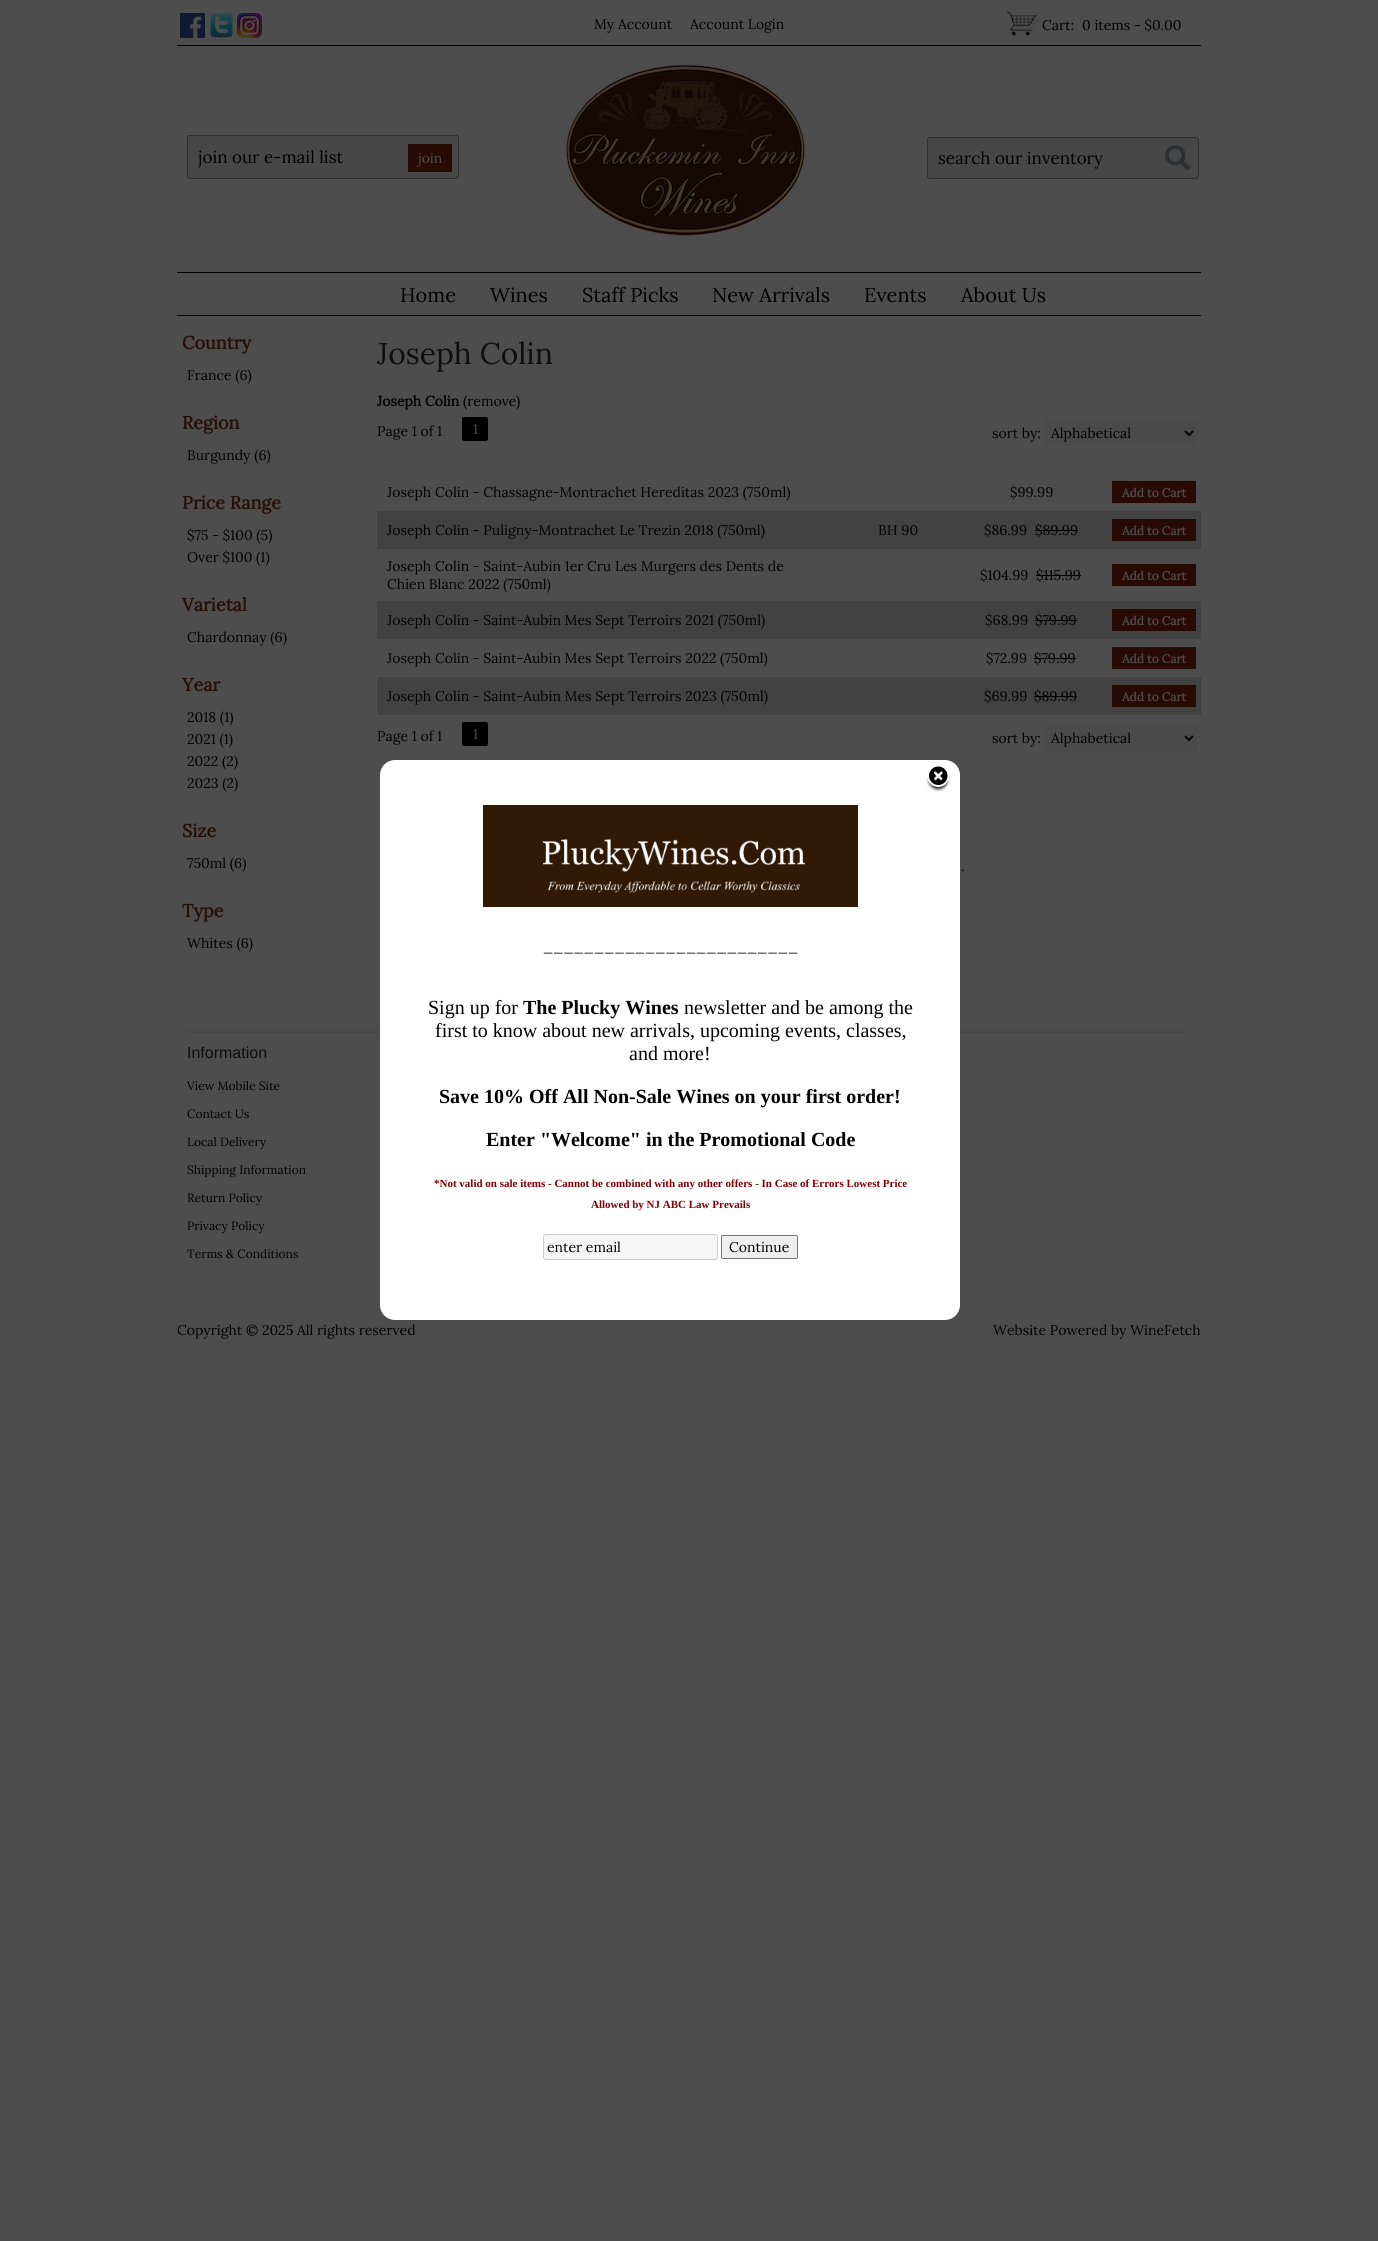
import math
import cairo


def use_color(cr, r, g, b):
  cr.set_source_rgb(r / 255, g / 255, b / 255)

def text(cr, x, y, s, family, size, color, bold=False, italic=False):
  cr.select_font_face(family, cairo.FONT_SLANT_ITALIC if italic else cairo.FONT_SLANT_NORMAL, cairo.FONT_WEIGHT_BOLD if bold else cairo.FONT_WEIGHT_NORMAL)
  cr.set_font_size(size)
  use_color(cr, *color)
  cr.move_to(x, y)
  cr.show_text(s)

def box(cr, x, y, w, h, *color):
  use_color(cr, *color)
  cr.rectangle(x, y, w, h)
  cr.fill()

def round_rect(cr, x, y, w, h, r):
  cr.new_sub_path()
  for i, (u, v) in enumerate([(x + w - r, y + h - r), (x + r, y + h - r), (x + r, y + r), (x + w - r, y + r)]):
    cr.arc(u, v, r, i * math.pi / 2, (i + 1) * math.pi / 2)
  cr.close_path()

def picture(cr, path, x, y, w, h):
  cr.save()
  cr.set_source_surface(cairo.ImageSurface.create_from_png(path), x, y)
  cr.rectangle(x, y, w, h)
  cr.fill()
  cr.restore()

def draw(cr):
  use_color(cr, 77, 77, 77)
  cr.paint()
  use_color(cr, 71, 71, 71)
  round_rect(cr, 187.5, 135.5, 271, 43, 2.5)
  cr.fill_preserve()
  use_color(cr, 46, 46, 46)
  cr.set_line_width(1)
  cr.stroke()
  box(cr, 408, 144, 44, 28, 39, 11, 2)
  box(cr, 177, 45, 1024, 1, 0, 0, 0)
  picture(cr, "img_01.png", 180, 13, 25, 25)
  picture(cr, "img_02.png", 210, 13, 23, 25)
  picture(cr, "img_03.png", 237, 13, 25, 25)
  picture(cr, "img_04.png", 1007, 11, 30, 25)
  picture(cr, "img_05.png", 564, 64, 243, 173)
  use_color(cr, 71, 71, 71)
  round_rect(cr, 927.5, 137.5, 271, 41, 2.5)
  cr.fill_preserve()
  use_color(cr, 46, 46, 46)
  cr.stroke()
  picture(cr, "img_06.png", 1165, 145, 26, 26)
  box(cr, 177, 272, 1024, 1, 0, 0, 0)
  box(cr, 177, 315, 1024, 1, 0, 0, 0)
  round_rect(cr, 462, 417, 26, 24, 2)
  cr.fill()
  box(cr, 1044, 420, 154, 26, 74, 74, 74)
  cr.new_path()
  cr.move_to(1185, 431)
  cr.line_to(1189, 435)
  cr.line_to(1193, 431)
  use_color(cr, 0, 0, 0)
  cr.set_line_width(2)
  cr.stroke()
  box(cr, 1112, 481, 84, 22, 39, 11, 2)
  box(cr, 377, 511, 824, 38, 66, 66, 66)
  box(cr, 1035, 530, 43, 1, 0, 0, 0)
  box(cr, 1112, 519, 84, 22, 39, 11, 2)
  box(cr, 1036, 575, 45, 1, 0, 0, 0)
  box(cr, 1112, 564, 84, 22, 39, 11, 2)
  box(cr, 377, 601, 824, 38, 66, 66, 66)
  box(cr, 1035, 620, 42, 1, 0, 0, 0)
  box(cr, 1112, 609, 84, 22, 39, 11, 2)
  box(cr, 1034, 658, 42, 1, 0, 0, 0)
  box(cr, 1112, 647, 84, 22, 39, 11, 2)
  box(cr, 377, 677, 824, 38, 66, 66, 66)
  box(cr, 1034, 696, 43, 1, 0, 0, 0)
  box(cr, 1112, 685, 84, 22, 39, 11, 2)
  use_color(cr, 0, 0, 0)
  round_rect(cr, 462, 722, 26, 24, 2)
  cr.fill()
  box(cr, 1044, 725, 154, 26, 74, 74, 74)
  cr.new_path()
  cr.move_to(1185, 736)
  cr.line_to(1189, 740)
  cr.line_to(1193, 736)
  use_color(cr, 0, 0, 0)
  cr.stroke()
  use_color(cr, 255, 255, 255)
  round_rect(cr, 380, 760, 580, 560, 15)
  cr.fill()
  picture(cr, "img_07.png", 926, 766, 24, 26)
  picture(cr, "img_08.png", 483, 805, 375, 102)
  use_color(cr, 246, 246, 246)
  round_rect(cr, 543.5, 1234.5, 174, 25, 2.5)
  cr.fill_preserve()
  use_color(cr, 204, 204, 204)
  cr.set_line_width(1)
  cr.stroke()
  use_color(cr, 239, 239, 239)
  round_rect(cr, 721.5, 1235.5, 76, 23, 1.5)
  cr.fill_preserve()
  use_color(cr, 118, 118, 118)
  cr.stroke()
  picture(cr, "img_09.png", 960, 1029, 227, 5)
  picture(cr, "img_10.png", 187, 1029, 193, 5)
  picture(cr, "img_11.png", 177, 1082, 3, 4)
  picture(cr, "img_11.png", 177, 1110, 3, 4)
  picture(cr, "img_11.png", 177, 1138, 3, 4)
  picture(cr, "img_11.png", 177, 1166, 3, 4)
  picture(cr, "img_11.png", 177, 1194, 3, 4)
  picture(cr, "img_11.png", 177, 1222, 3, 4)
  picture(cr, "img_11.png", 177, 1250, 3, 4)
  cr.save()
  cr.rectangle(198, 146, 250, 22)
  cr.clip()
  text(cr, 198, 163, "join our e-mail list", "Lora", 17, (0, 0, 0))
  cr.restore()
  text(cr, 418, 163, "join", "Lora", 14, (77, 77, 77))
  text(cr, 594, 29, "My Account", "Lora", 14, (0, 0, 0))
  text(cr, 690, 29, "Account Login", "Lora", 14, (0, 0, 0))
  text(cr, 1042, 30, "Cart:", "Lora", 14, (0, 0, 0))
  text(cr, 1082, 30, "0 items - $0.00", "Lora", 14, (0, 0, 0))
  text(cr, 938, 164, "search our inventory", "Lora", 17, (0, 0, 0))
  text(cr, 400, 302, "Home", "Lora", 20, (0, 0, 0))
  text(cr, 490, 302, "Wines", "Lora", 20, (0, 0, 0))
  text(cr, 582, 302, "Staff Picks", "Lora", 20, (0, 0, 0))
  text(cr, 712, 302, "New Arrivals", "Lora", 20, (0, 0, 0))
  text(cr, 864, 302, "Events", "Lora", 20, (0, 0, 0))
  text(cr, 961, 302, "About Us", "Lora", 20, (0, 0, 0))
  text(cr, 182, 349, "Country", "Lora", 18, (36, 14, 8), bold=True)
  text(cr, 187, 380, "France (6)", "Lora", 14, (0, 0, 0))
  text(cr, 182, 429, "Region", "Lora", 18, (36, 14, 8), bold=True)
  text(cr, 187, 460, "Burgundy (6)", "Lora", 14, (0, 0, 0))
  text(cr, 182, 509, "Price Range", "Lora", 18, (36, 14, 8), bold=True)
  text(cr, 187, 540, "$75 - $100 (5)", "Lora", 14, (0, 0, 0))
  text(cr, 187, 562, "Over $100 (1)", "Lora", 14, (0, 0, 0))
  text(cr, 182, 611, "Varietal", "Lora", 18, (36, 14, 8), bold=True)
  text(cr, 187, 642, "Chardonnay (6)", "Lora", 14, (0, 0, 0))
  text(cr, 182, 691, "Year", "Lora", 18, (36, 14, 8), bold=True)
  text(cr, 187, 722, "2018 (1)", "Lora", 14, (0, 0, 0))
  text(cr, 187, 744, "2021 (1)", "Lora", 14, (0, 0, 0))
  text(cr, 187, 766, "2022 (2)", "Lora", 14, (0, 0, 0))
  text(cr, 187, 788, "2023 (2)", "Lora", 14, (0, 0, 0))
  text(cr, 182, 837, "Size", "Lora", 18, (36, 14, 8), bold=True)
  text(cr, 187, 868, "750ml (6)", "Lora", 14, (0, 0, 0))
  text(cr, 182, 917, "Type", "Lora", 18, (36, 14, 8), bold=True)
  text(cr, 187, 948, "Whites (6)", "Lora", 14, (0, 0, 0))
  text(cr, 377, 364, "Joseph Colin", "Lora", 30, (14, 14, 14))
  text(cr, 377, 406, "Joseph Colin", "Lora", 14, (0, 0, 0), bold=True)
  text(cr, 463, 406, "(remove", "Lora", 14, (0, 0, 0))
  text(cr, 516, 406, ")", "Lora", 14, (0, 0, 0))
  text(cr, 377, 436, "Page 1 of 1", "Lora", 14, (0, 0, 0))
  text(cr, 473, 434, "1", "Lora", 14, (77, 77, 77))
  text(cr, 992, 438, "sort by:", "Lora", 14, (0, 0, 0))
  text(cr, 1051, 438, "Alphabetical", "Lora", 14, (0, 0, 0))
  text(cr, 387, 497, "Joseph Colin - Chassagne-Montrachet Hereditas 2023 (750ml)", "Lora", 14, (0, 0, 0))
  text(cr, 1010, 497, "$99.99", "Lora", 14, (0, 0, 0))
  text(cr, 1122, 497, "Add to Cart", "Lora", 12, (77, 77, 77), bold=True)
  text(cr, 387, 535, "Joseph Colin - Puligny-Montrachet Le Trezin 2018 (750ml)", "Lora", 14, (0, 0, 0))
  text(cr, 878, 535, "BH 90", "Lora", 14, (0, 0, 0))
  text(cr, 984, 535, "$86.99", "Lora", 14, (0, 0, 0))
  text(cr, 1035, 535, "$89.99", "Lora", 14, (0, 0, 0))
  text(cr, 1122, 535, "Add to Cart", "Lora", 12, (77, 77, 77), bold=True)
  text(cr, 387, 571, "Joseph Colin - Saint-Aubin 1er Cru Les Murgers des Dents de", "Lora", 14, (0, 0, 0))
  text(cr, 387, 589, "Chien Blanc 2022 (750ml)", "Lora", 14, (0, 0, 0))
  text(cr, 980, 580, "$104.99", "Lora", 14, (0, 0, 0))
  text(cr, 1036, 580, "$115.99", "Lora", 14, (0, 0, 0))
  text(cr, 1122, 580, "Add to Cart", "Lora", 12, (77, 77, 77), bold=True)
  text(cr, 387, 625, "Joseph Colin - Saint-Aubin Mes Sept Terroirs 2021 (750ml)", "Lora", 14, (0, 0, 0))
  text(cr, 985, 625, "$68.99", "Lora", 14, (0, 0, 0))
  text(cr, 1035, 625, "$79.99", "Lora", 14, (0, 0, 0))
  text(cr, 1122, 625, "Add to Cart", "Lora", 12, (77, 77, 77), bold=True)
  text(cr, 387, 663, "Joseph Colin - Saint-Aubin Mes Sept Terroirs 2022 (750ml)", "Lora", 14, (0, 0, 0))
  text(cr, 986, 663, "$72.99", "Lora", 14, (0, 0, 0))
  text(cr, 1034, 663, "$79.99", "Lora", 14, (0, 0, 0))
  text(cr, 1122, 663, "Add to Cart", "Lora", 12, (77, 77, 77), bold=True)
  text(cr, 387, 701, "Joseph Colin - Saint-Aubin Mes Sept Terroirs 2023 (750ml)", "Lora", 14, (0, 0, 0))
  text(cr, 984, 701, "$69.99", "Lora", 14, (0, 0, 0))
  text(cr, 1034, 701, "$89.99", "Lora", 14, (0, 0, 0))
  text(cr, 1122, 701, "Add to Cart", "Lora", 12, (77, 77, 77), bold=True)
  text(cr, 377, 741, "Page 1 of 1", "Lora", 14, (0, 0, 0))
  text(cr, 473, 739, "1", "Lora", 14, (77, 77, 77))
  text(cr, 992, 743, "sort by:", "Lora", 14, (0, 0, 0))
  text(cr, 1051, 743, "Alphabetical", "Lora", 14, (0, 0, 0))
  text(cr, 961, 871, ".", "Lora", 14, (0, 0, 0))
  text(cr, 543, 952, "_________________________", "Lora", 14, (0, 0, 0))
  text(cr, 428, 1014, "Sign up for", "Liberation Serif", 20, (0, 0, 0))
  text(cr, 523, 1014, "The Plucky Wines", "Liberation Serif", 20, (0, 0, 0), bold=True)
  text(cr, 684, 1014, "newsletter and be among the", "Liberation Serif", 20, (0, 0, 0))
  text(cr, 435, 1037, "first to know about new arrivals, upcoming events, classes,", "Liberation Serif", 20, (0, 0, 0))
  text(cr, 629, 1060, "and more!", "Liberation Serif", 20, (0, 0, 0))
  text(cr, 439, 1103, "Save 10% Off All Non-Sale Wines on your first order!", "Liberation Serif", 20, (0, 0, 0), bold=True)
  text(cr, 486, 1146, "Enter \"Welcome\" in the Promotional Code", "Liberation Serif", 20, (0, 0, 0), bold=True)
  text(cr, 434, 1187, "*Not valid on sale items - Cannot be combined with any other offers - In Case of Errors Lowest Price", "Liberation Serif", 11, (128, 0, 0), bold=True)
  text(cr, 591, 1208, "Allowed by NJ ABC Law Prevails", "Liberation Serif", 11, (128, 0, 0), bold=True)
  text(cr, 547, 1252, "enter email", "Lora", 14, (0, 0, 0))
  text(cr, 729, 1252, "Continue", "Lora", 14, (0, 0, 0))
  text(cr, 187, 1058, "Information", "Liberation Sans", 16, (14, 14, 14))
  text(cr, 187, 1090, "View Mobile Site", "Lora", 12, (0, 0, 0))
  text(cr, 187, 1118, "Contact Us", "Lora", 12, (0, 0, 0))
  text(cr, 187, 1146, "Local Delivery", "Lora", 12, (0, 0, 0))
  text(cr, 187, 1174, "Shipping Information", "Lora", 12, (0, 0, 0))
  text(cr, 187, 1202, "Return Policy", "Lora", 12, (0, 0, 0))
  text(cr, 187, 1230, "Privacy Policy", "Lora", 12, (0, 0, 0))
  text(cr, 187, 1258, "Terms & Conditions", "Lora", 12, (0, 0, 0))
  text(cr, 177, 1335, "Copyright © 2025 All rights reserved", "Lora", 14, (0, 0, 0))
  text(cr, 993, 1335, "Website Powered by WineFetch", "Lora", 14, (0, 0, 0))


surface = cairo.ImageSurface(cairo.FORMAT_RGB24, 1378, 2241)
cr = cairo.Context(surface)
options = cairo.FontOptions()
options.set_hint_metrics(cairo.HINT_METRICS_OFF)
options.set_hint_style(cairo.HINT_STYLE_NONE)
cr.set_font_options(options)
cr.set_miter_limit(4)
draw(cr)
surface.write_to_png("out.png")
